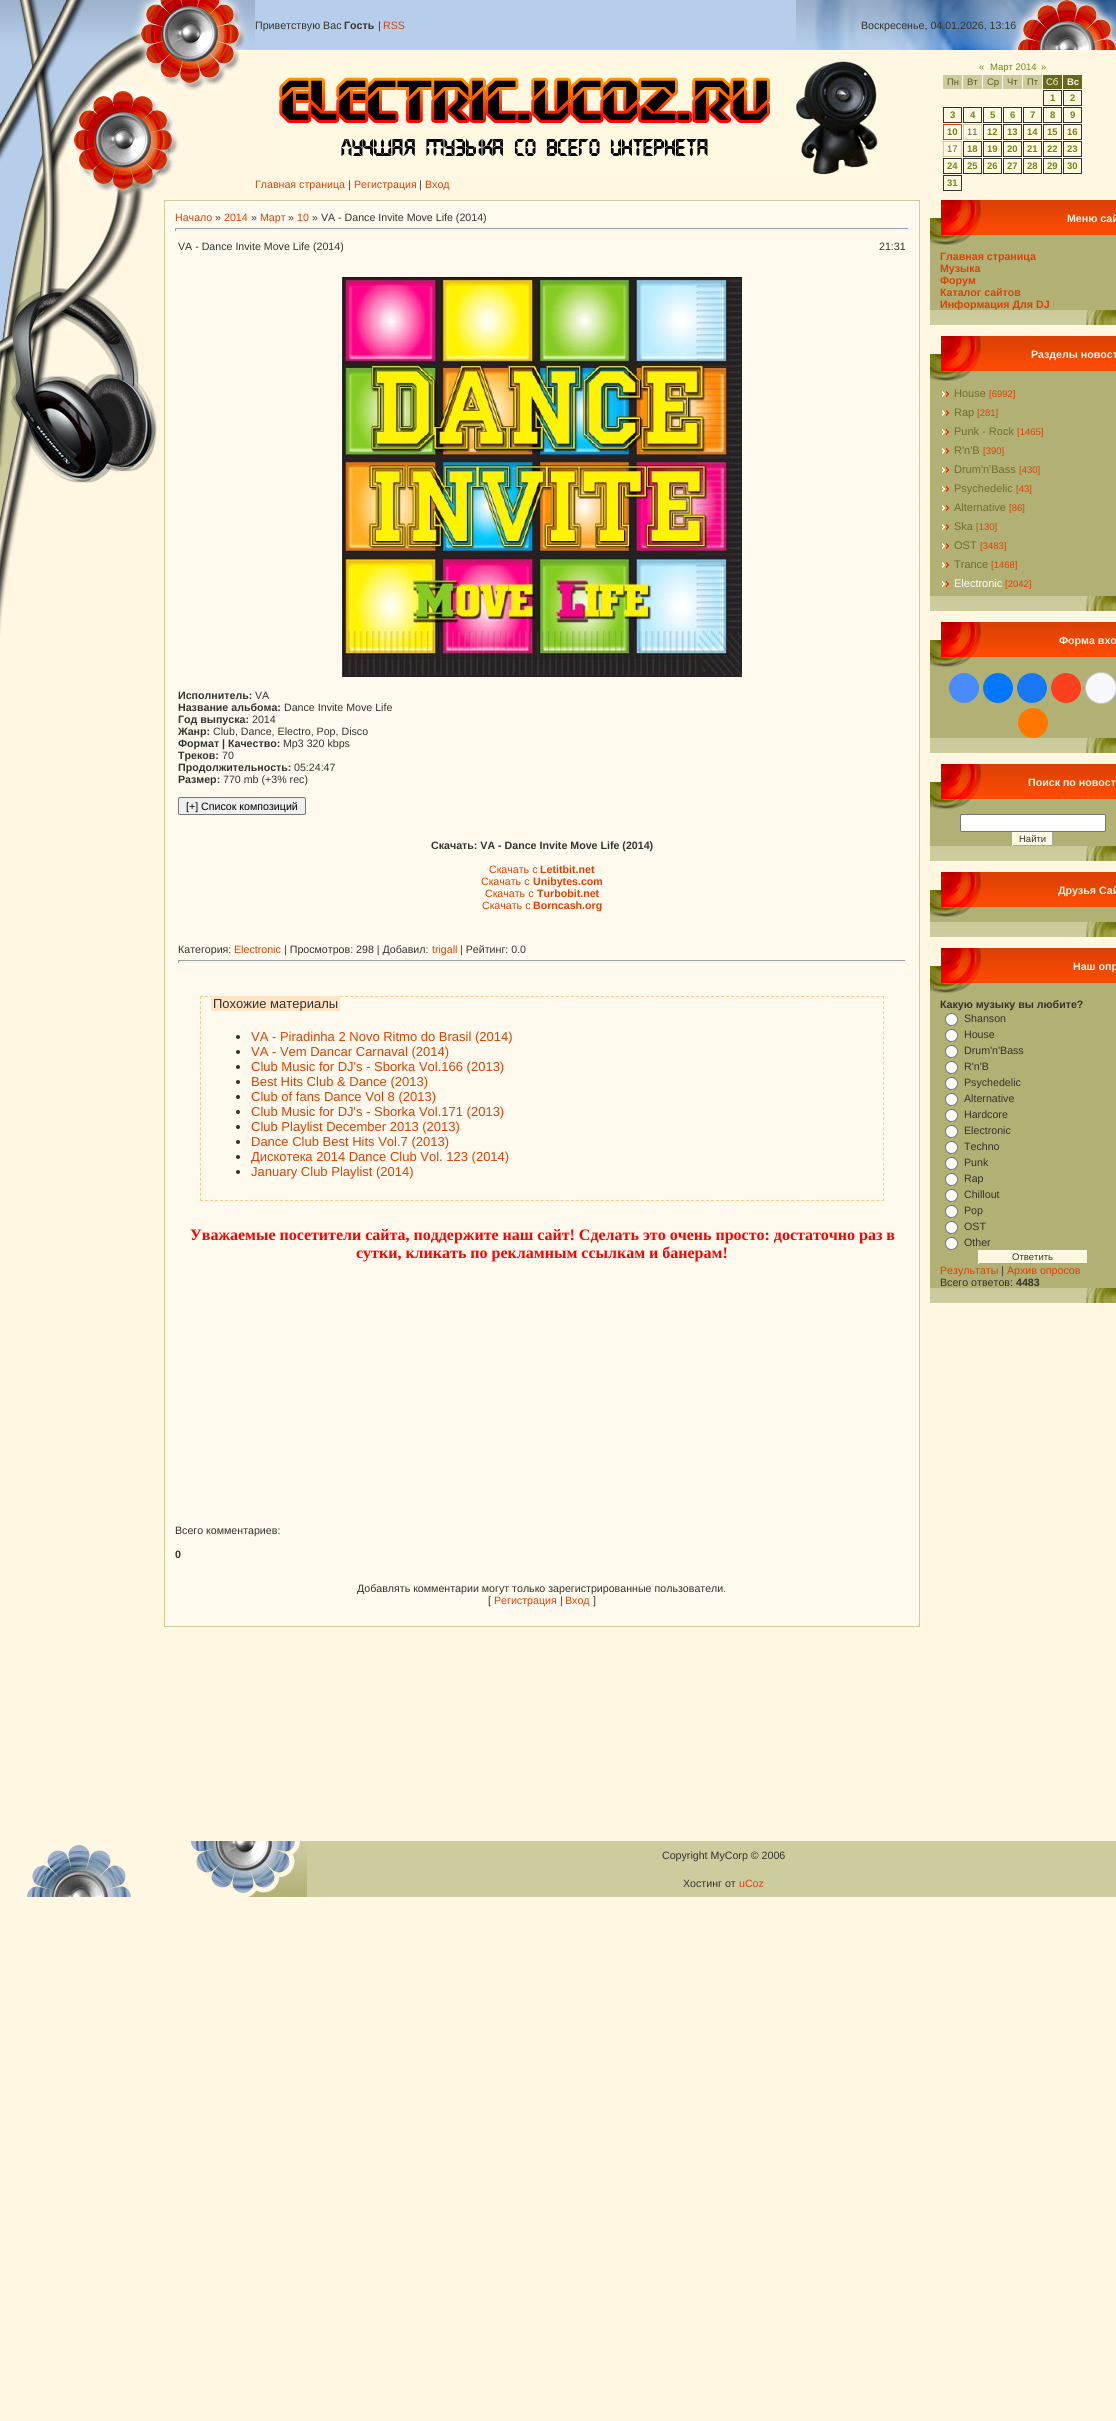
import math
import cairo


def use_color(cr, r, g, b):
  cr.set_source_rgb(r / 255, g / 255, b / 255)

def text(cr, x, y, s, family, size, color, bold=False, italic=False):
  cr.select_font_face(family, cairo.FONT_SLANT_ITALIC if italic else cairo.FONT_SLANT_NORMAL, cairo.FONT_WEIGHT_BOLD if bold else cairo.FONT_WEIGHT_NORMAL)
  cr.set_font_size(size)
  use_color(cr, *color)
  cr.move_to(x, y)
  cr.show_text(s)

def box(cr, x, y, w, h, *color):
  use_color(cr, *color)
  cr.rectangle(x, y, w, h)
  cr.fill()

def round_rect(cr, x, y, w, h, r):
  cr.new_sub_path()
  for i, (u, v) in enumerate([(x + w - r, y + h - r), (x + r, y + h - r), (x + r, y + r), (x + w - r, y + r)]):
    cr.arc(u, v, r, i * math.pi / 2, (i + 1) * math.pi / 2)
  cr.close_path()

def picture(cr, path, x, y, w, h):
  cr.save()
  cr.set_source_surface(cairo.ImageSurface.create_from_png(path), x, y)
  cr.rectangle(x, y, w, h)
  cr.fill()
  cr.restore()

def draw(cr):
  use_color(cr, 255, 247, 226)
  cr.paint()
  box(cr, 255, 0, 541, 50, 182, 206, 235)
  picture(cr, "img_01.png", 0, 0, 255, 50)
  picture(cr, "img_02.png", 796, 0, 320, 50)
  picture(cr, "img_03.png", 0, 50, 240, 150)
  picture(cr, "img_04.png", 279, 61, 599, 114)
  box(cr, 943, 75, 19, 14, 204, 204, 158)
  box(cr, 963, 75, 19, 14, 204, 204, 158)
  box(cr, 983, 75, 19, 14, 204, 204, 158)
  box(cr, 1003, 75, 19, 14, 204, 204, 158)
  box(cr, 1023, 75, 19, 14, 204, 204, 158)
  box(cr, 1043, 75, 19, 14, 104, 104, 26)
  box(cr, 1063, 75, 19, 14, 104, 104, 26)
  cr.rectangle(1043.5, 90.5, 18, 15)
  use_color(cr, 51, 51, 45)
  cr.set_line_width(1)
  cr.stroke()
  cr.rectangle(1063.5, 90.5, 18, 15)
  cr.stroke()
  cr.rectangle(943.5, 107.5, 18, 15)
  cr.stroke()
  cr.rectangle(963.5, 107.5, 18, 15)
  cr.stroke()
  cr.rectangle(983.5, 107.5, 18, 15)
  cr.stroke()
  cr.rectangle(1003.5, 107.5, 18, 15)
  cr.stroke()
  cr.rectangle(1023.5, 107.5, 18, 15)
  cr.stroke()
  cr.rectangle(1043.5, 107.5, 18, 15)
  cr.stroke()
  cr.rectangle(1063.5, 107.5, 18, 15)
  cr.stroke()
  cr.rectangle(943.5, 124.5, 18, 15)
  use_color(cr, 219, 65, 4)
  cr.stroke()
  cr.rectangle(963.5, 124.5, 18, 15)
  use_color(cr, 204, 204, 158)
  cr.stroke()
  cr.rectangle(983.5, 124.5, 18, 15)
  use_color(cr, 51, 51, 45)
  cr.stroke()
  cr.rectangle(1003.5, 124.5, 18, 15)
  cr.stroke()
  cr.rectangle(1023.5, 124.5, 18, 15)
  cr.stroke()
  cr.rectangle(1043.5, 124.5, 18, 15)
  cr.stroke()
  cr.rectangle(1063.5, 124.5, 18, 15)
  cr.stroke()
  cr.rectangle(943.5, 141.5, 18, 15)
  use_color(cr, 204, 204, 158)
  cr.stroke()
  cr.rectangle(963.5, 141.5, 18, 15)
  use_color(cr, 51, 51, 45)
  cr.stroke()
  cr.rectangle(983.5, 141.5, 18, 15)
  cr.stroke()
  cr.rectangle(1003.5, 141.5, 18, 15)
  cr.stroke()
  cr.rectangle(1023.5, 141.5, 18, 15)
  cr.stroke()
  cr.rectangle(1043.5, 141.5, 18, 15)
  cr.stroke()
  cr.rectangle(1063.5, 141.5, 18, 15)
  cr.stroke()
  cr.rectangle(943.5, 158.5, 18, 15)
  cr.stroke()
  cr.rectangle(963.5, 158.5, 18, 15)
  cr.stroke()
  cr.rectangle(983.5, 158.5, 18, 15)
  cr.stroke()
  cr.rectangle(1003.5, 158.5, 18, 15)
  cr.stroke()
  cr.rectangle(1023.5, 158.5, 18, 15)
  cr.stroke()
  cr.rectangle(1043.5, 158.5, 18, 15)
  cr.stroke()
  cr.rectangle(1063.5, 158.5, 18, 15)
  cr.stroke()
  cr.rectangle(943.5, 175.5, 18, 15)
  cr.stroke()
  picture(cr, "img_05.png", 24, 1844, 110, 53)
  picture(cr, "img_06.png", 0, 200, 157, 435)
  cr.rectangle(164.5, 200.5, 755, 1426)
  use_color(cr, 204, 204, 158)
  cr.stroke()
  box(cr, 165, 201, 754, 1425, 255, 250, 237)
  box(cr, 175, 228, 734, 1, 159, 159, 159)
  box(cr, 908, 228, 1, 3, 238, 238, 238)
  box(cr, 175, 230, 734, 1, 238, 238, 238)
  box(cr, 175, 228, 1, 3, 159, 159, 159)
  picture(cr, "img_07.png", 342, 277, 400, 400)
  use_color(cr, 239, 239, 239)
  round_rect(cr, 178.5, 797.5, 127, 17, 1.5)
  cr.fill_preserve()
  use_color(cr, 118, 118, 118)
  cr.stroke()
  box(cr, 178, 960, 728, 1, 159, 159, 159)
  box(cr, 905, 960, 1, 3, 238, 238, 238)
  box(cr, 178, 962, 728, 1, 238, 238, 238)
  box(cr, 178, 960, 1, 3, 159, 159, 159)
  cr.new_path()
  cr.move_to(200, 996.5)
  cr.line_to(884, 996.5)
  use_color(cr, 255, 200, 140)
  cr.set_dash([3, 2.01])
  cr.stroke()
  cr.new_path()
  cr.move_to(883.5, 996)
  cr.line_to(883.5, 1201)
  cr.set_dash([3, 2.05])
  cr.stroke()
  cr.new_path()
  cr.move_to(200, 1200.5)
  cr.line_to(884, 1200.5)
  cr.set_dash([3, 2.01])
  cr.stroke()
  cr.new_path()
  cr.move_to(200.5, 996)
  cr.line_to(200.5, 1201)
  cr.set_dash([3, 2.05])
  cr.stroke()
  box(cr, 211, 996, 129, 15, 255, 228, 199)
  use_color(cr, 51, 51, 45)
  cr.arc(238, 1037, 2, 0, 2 * math.pi)
  cr.fill()
  cr.arc(238, 1052, 2, 0, 2 * math.pi)
  cr.fill()
  cr.arc(238, 1067, 2, 0, 2 * math.pi)
  cr.fill()
  cr.arc(238, 1082, 2, 0, 2 * math.pi)
  cr.fill()
  cr.arc(238, 1097, 2, 0, 2 * math.pi)
  cr.fill()
  cr.arc(238, 1112, 2, 0, 2 * math.pi)
  cr.fill()
  cr.arc(238, 1127, 2, 0, 2 * math.pi)
  cr.fill()
  cr.arc(238, 1142, 2, 0, 2 * math.pi)
  cr.fill()
  cr.arc(238, 1157, 2, 0, 2 * math.pi)
  cr.fill()
  cr.arc(238, 1172, 2, 0, 2 * math.pi)
  cr.fill()
  box(cr, 930, 235, 186, 75, 177, 177, 118)
  picture(cr, "img_08.png", 930, 200, 186, 45)
  box(cr, 930, 371, 186, 225, 177, 177, 118)
  picture(cr, "img_08.png", 930, 336, 186, 45)
  picture(cr, "img_10.png", 942, 391, 7, 6)
  picture(cr, "img_10.png", 942, 410, 7, 6)
  picture(cr, "img_10.png", 942, 429, 7, 6)
  picture(cr, "img_10.png", 942, 448, 7, 6)
  picture(cr, "img_10.png", 942, 467, 7, 6)
  picture(cr, "img_10.png", 942, 486, 7, 6)
  picture(cr, "img_10.png", 942, 505, 7, 6)
  picture(cr, "img_10.png", 942, 524, 7, 6)
  picture(cr, "img_10.png", 942, 543, 7, 6)
  picture(cr, "img_10.png", 942, 562, 7, 6)
  picture(cr, "img_10.png", 942, 581, 7, 6)
  picture(cr, "img_09.png", 930, 596, 186, 26)
  box(cr, 930, 657, 186, 81, 177, 177, 118)
  picture(cr, "img_08.png", 930, 622, 186, 45)
  use_color(cr, 73, 139, 250)
  cr.arc(964, 688, 15, 0, 2 * math.pi)
  cr.fill()
  use_color(cr, 0, 119, 255)
  cr.arc(998, 688, 15, 0, 2 * math.pi)
  cr.fill()
  use_color(cr, 24, 119, 242)
  cr.arc(1032, 688, 15, 0, 2 * math.pi)
  cr.fill()
  use_color(cr, 252, 63, 29)
  cr.arc(1066, 688, 15, 0, 2 * math.pi)
  cr.fill()
  use_color(cr, 248, 248, 252)
  cr.arc(1101, 688, 15.5, 0, 2 * math.pi)
  cr.fill_preserve()
  use_color(cr, 196, 196, 196)
  cr.set_dash([])
  cr.stroke()
  use_color(cr, 255, 119, 0)
  cr.arc(1033, 723, 15, 0, 2 * math.pi)
  cr.fill()
  picture(cr, "img_09.png", 930, 738, 186, 26)
  box(cr, 930, 799, 186, 47, 177, 177, 118)
  picture(cr, "img_08.png", 930, 764, 186, 45)
  use_color(cr, 255, 255, 255)
  round_rect(cr, 960.5, 814.5, 145, 17, 1.5)
  cr.fill_preserve()
  use_color(cr, 118, 118, 118)
  cr.stroke()
  box(cr, 1013, 832, 39, 13, 255, 247, 226)
  box(cr, 1052, 832, 1, 14, 170, 165, 151)
  box(cr, 1012, 845, 41, 1, 170, 165, 151)
  box(cr, 1012, 832, 1, 14, 255, 247, 226)
  picture(cr, "img_09.png", 930, 846, 186, 26)
  box(cr, 930, 907, 186, 15, 177, 177, 118)
  picture(cr, "img_08.png", 930, 872, 186, 45)
  picture(cr, "img_09.png", 930, 922, 186, 26)
  box(cr, 930, 983, 186, 305, 177, 177, 118)
  picture(cr, "img_08.png", 930, 948, 186, 45)
  use_color(cr, 255, 255, 255)
  cr.arc(951.5, 1019.5, 6, 0, 2 * math.pi)
  cr.fill_preserve()
  use_color(cr, 118, 118, 118)
  cr.stroke()
  use_color(cr, 255, 255, 255)
  cr.arc(951.5, 1035.5, 6, 0, 2 * math.pi)
  cr.fill_preserve()
  use_color(cr, 118, 118, 118)
  cr.stroke()
  use_color(cr, 255, 255, 255)
  cr.arc(951.5, 1051.5, 6, 0, 2 * math.pi)
  cr.fill_preserve()
  use_color(cr, 118, 118, 118)
  cr.stroke()
  use_color(cr, 255, 255, 255)
  cr.arc(951.5, 1067.5, 6, 0, 2 * math.pi)
  cr.fill_preserve()
  use_color(cr, 118, 118, 118)
  cr.stroke()
  use_color(cr, 255, 255, 255)
  cr.arc(951.5, 1083.5, 6, 0, 2 * math.pi)
  cr.fill_preserve()
  use_color(cr, 118, 118, 118)
  cr.stroke()
  use_color(cr, 255, 255, 255)
  cr.arc(951.5, 1099.5, 6, 0, 2 * math.pi)
  cr.fill_preserve()
  use_color(cr, 118, 118, 118)
  cr.stroke()
  use_color(cr, 255, 255, 255)
  cr.arc(951.5, 1115.5, 6, 0, 2 * math.pi)
  cr.fill_preserve()
  use_color(cr, 118, 118, 118)
  cr.stroke()
  use_color(cr, 255, 255, 255)
  cr.arc(951.5, 1131.5, 6, 0, 2 * math.pi)
  cr.fill_preserve()
  use_color(cr, 118, 118, 118)
  cr.stroke()
  use_color(cr, 255, 255, 255)
  cr.arc(951.5, 1147.5, 6, 0, 2 * math.pi)
  cr.fill_preserve()
  use_color(cr, 118, 118, 118)
  cr.stroke()
  use_color(cr, 255, 255, 255)
  cr.arc(951.5, 1163.5, 6, 0, 2 * math.pi)
  cr.fill_preserve()
  use_color(cr, 118, 118, 118)
  cr.stroke()
  use_color(cr, 255, 255, 255)
  cr.arc(951.5, 1179.5, 6, 0, 2 * math.pi)
  cr.fill_preserve()
  use_color(cr, 118, 118, 118)
  cr.stroke()
  use_color(cr, 255, 255, 255)
  cr.arc(951.5, 1195.5, 6, 0, 2 * math.pi)
  cr.fill_preserve()
  use_color(cr, 118, 118, 118)
  cr.stroke()
  use_color(cr, 255, 255, 255)
  cr.arc(951.5, 1211.5, 6, 0, 2 * math.pi)
  cr.fill_preserve()
  use_color(cr, 118, 118, 118)
  cr.stroke()
  use_color(cr, 255, 255, 255)
  cr.arc(951.5, 1227.5, 6, 0, 2 * math.pi)
  cr.fill_preserve()
  use_color(cr, 118, 118, 118)
  cr.stroke()
  use_color(cr, 255, 255, 255)
  cr.arc(951.5, 1243.5, 6, 0, 2 * math.pi)
  cr.fill_preserve()
  use_color(cr, 118, 118, 118)
  cr.stroke()
  box(cr, 979, 1250, 108, 13, 255, 247, 226)
  box(cr, 1087, 1250, 1, 14, 170, 165, 151)
  box(cr, 978, 1263, 110, 1, 170, 165, 151)
  box(cr, 978, 1250, 1, 14, 255, 247, 226)
  picture(cr, "img_09.png", 930, 1288, 186, 26)
  box(cr, 307, 1841, 809, 56, 204, 204, 158)
  picture(cr, "img_11.png", 164, 1841, 143, 56)
  text(cr, 255, 29, "Приветствую Вас", "Liberation Sans", 10.65, (51, 51, 45))
  text(cr, 344, 29, "Гость", "Liberation Sans", 10.65, (51, 51, 45), bold=True)
  text(cr, 378, 29, "|", "Liberation Sans", 10.65, (51, 51, 45))
  text(cr, 383, 29, "RSS", "Liberation Sans", 10.65, (219, 65, 4))
  text(cr, 861, 29, "Воскресенье, 04.01.2026, 13:16", "Liberation Sans", 10.65, (51, 51, 45))
  text(cr, 255, 188, "Главная страница", "Liberation Sans", 10.65, (219, 65, 4))
  text(cr, 348, 188, "|", "Liberation Sans", 10.65, (51, 51, 45))
  text(cr, 354, 188, "Регистрация", "Liberation Sans", 10.65, (219, 65, 4))
  text(cr, 419, 188, "|", "Liberation Sans", 10.65, (51, 51, 45))
  text(cr, 425, 188, "Вход", "Liberation Sans", 10.65, (219, 65, 4))
  text(cr, 979, 70, "«", "Liberation Sans", 9.5, (113, 134, 17))
  text(cr, 990, 70, "Март 2014", "Liberation Sans", 9.5, (113, 134, 17))
  text(cr, 1041, 70, "»", "Liberation Sans", 9.5, (113, 134, 17))
  text(cr, 947, 85, "Пн", "Liberation Sans", 9.5, (85, 93, 36))
  text(cr, 967, 85, "Вт", "Liberation Sans", 9.5, (85, 93, 36))
  text(cr, 987, 85, "Ср", "Liberation Sans", 9.5, (85, 93, 36))
  text(cr, 1007, 85, "Чт", "Liberation Sans", 9.5, (85, 93, 36))
  text(cr, 1027, 85, "Пт", "Liberation Sans", 9.5, (85, 93, 36))
  text(cr, 1046, 85, "Сб", "Liberation Sans", 9.5, (255, 247, 226))
  text(cr, 1067, 85, "Вс", "Liberation Sans", 9.5, (255, 247, 226), bold=True)
  text(cr, 1050, 101, "1", "Liberation Sans", 9.5, (113, 134, 17), bold=True)
  text(cr, 1070, 101, "2", "Liberation Sans", 9.5, (113, 134, 17), bold=True)
  text(cr, 950, 118, "3", "Liberation Sans", 9.5, (113, 134, 17), bold=True)
  text(cr, 970, 118, "4", "Liberation Sans", 9.5, (113, 134, 17), bold=True)
  text(cr, 990, 118, "5", "Liberation Sans", 9.5, (113, 134, 17), bold=True)
  text(cr, 1010, 118, "6", "Liberation Sans", 9.5, (113, 134, 17), bold=True)
  text(cr, 1030, 118, "7", "Liberation Sans", 9.5, (113, 134, 17), bold=True)
  text(cr, 1050, 118, "8", "Liberation Sans", 9.5, (113, 134, 17), bold=True)
  text(cr, 1070, 118, "9", "Liberation Sans", 9.5, (113, 134, 17), bold=True)
  text(cr, 947, 135, "10", "Liberation Sans", 9.5, (113, 134, 17), bold=True)
  text(cr, 967, 135, "11", "Liberation Sans", 9.5, (94, 92, 78))
  text(cr, 987, 135, "12", "Liberation Sans", 9.5, (113, 134, 17), bold=True)
  text(cr, 1007, 135, "13", "Liberation Sans", 9.5, (113, 134, 17), bold=True)
  text(cr, 1027, 135, "14", "Liberation Sans", 9.5, (113, 134, 17), bold=True)
  text(cr, 1047, 135, "15", "Liberation Sans", 9.5, (113, 134, 17), bold=True)
  text(cr, 1067, 135, "16", "Liberation Sans", 9.5, (113, 134, 17), bold=True)
  text(cr, 947, 152, "17", "Liberation Sans", 9.5, (94, 92, 78))
  text(cr, 967, 152, "18", "Liberation Sans", 9.5, (113, 134, 17), bold=True)
  text(cr, 987, 152, "19", "Liberation Sans", 9.5, (113, 134, 17), bold=True)
  text(cr, 1007, 152, "20", "Liberation Sans", 9.5, (113, 134, 17), bold=True)
  text(cr, 1027, 152, "21", "Liberation Sans", 9.5, (113, 134, 17), bold=True)
  text(cr, 1047, 152, "22", "Liberation Sans", 9.5, (113, 134, 17), bold=True)
  text(cr, 1067, 152, "23", "Liberation Sans", 9.5, (113, 134, 17), bold=True)
  text(cr, 947, 169, "24", "Liberation Sans", 9.5, (113, 134, 17), bold=True)
  text(cr, 967, 169, "25", "Liberation Sans", 9.5, (113, 134, 17), bold=True)
  text(cr, 987, 169, "26", "Liberation Sans", 9.5, (113, 134, 17), bold=True)
  text(cr, 1007, 169, "27", "Liberation Sans", 9.5, (113, 134, 17), bold=True)
  text(cr, 1027, 169, "28", "Liberation Sans", 9.5, (113, 134, 17), bold=True)
  text(cr, 1047, 169, "29", "Liberation Sans", 9.5, (113, 134, 17), bold=True)
  text(cr, 1067, 169, "30", "Liberation Sans", 9.5, (113, 134, 17), bold=True)
  text(cr, 947, 186, "31", "Liberation Sans", 9.5, (113, 134, 17), bold=True)
  text(cr, 175, 221, "Начало", "Liberation Sans", 10.65, (219, 65, 4))
  text(cr, 215, 221, "»", "Liberation Sans", 10.65, (51, 51, 45))
  text(cr, 224, 221, "2014", "Liberation Sans", 10.65, (219, 65, 4))
  text(cr, 251, 221, "»", "Liberation Sans", 10.65, (51, 51, 45))
  text(cr, 260, 221, "Март", "Liberation Sans", 10.65, (219, 65, 4))
  text(cr, 288, 221, "»", "Liberation Sans", 10.65, (51, 51, 45))
  text(cr, 297, 221, "10", "Liberation Sans", 10.65, (219, 65, 4))
  text(cr, 312, 221, "» VA - Dance Invite Move Life (2014)", "Liberation Sans", 10.65, (51, 51, 45))
  text(cr, 178, 250, "VA - Dance Invite Move Life (2014)", "Liberation Sans", 10.65, (51, 51, 45))
  text(cr, 879, 250, "21:31", "Liberation Sans", 10.65, (51, 51, 45))
  text(cr, 178, 699, "Исполнитель:", "Liberation Sans", 10.65, (51, 51, 45), bold=True)
  text(cr, 255, 699, "VA", "Liberation Sans", 10.65, (51, 51, 45))
  text(cr, 178, 711, "Название альбома:", "Liberation Sans", 10.65, (51, 51, 45), bold=True)
  text(cr, 284, 711, "Dance Invite Move Life", "Liberation Sans", 10.65, (51, 51, 45))
  text(cr, 178, 723, "Год выпуска:", "Liberation Sans", 10.65, (51, 51, 45), bold=True)
  text(cr, 252, 723, "2014", "Liberation Sans", 10.65, (51, 51, 45))
  text(cr, 178, 735, "Жанр:", "Liberation Sans", 10.65, (51, 51, 45), bold=True)
  text(cr, 213, 735, "Club, Dance, Electro, Pop, Disco", "Liberation Sans", 10.65, (51, 51, 45))
  text(cr, 178, 747, "Формат | Качество:", "Liberation Sans", 10.65, (51, 51, 45), bold=True)
  text(cr, 283, 747, "Mp3 320 kbps", "Liberation Sans", 10.65, (51, 51, 45))
  text(cr, 178, 759, "Треков:", "Liberation Sans", 10.65, (51, 51, 45), bold=True)
  text(cr, 222, 759, "70", "Liberation Sans", 10.65, (51, 51, 45))
  text(cr, 178, 771, "Продолжительность:", "Liberation Sans", 10.65, (51, 51, 45), bold=True)
  text(cr, 294, 771, "05:24:47", "Liberation Sans", 10.65, (51, 51, 45))
  text(cr, 178, 783, "Размер:", "Liberation Sans", 10.65, (51, 51, 45), bold=True)
  text(cr, 223, 783, "770 mb (+3% rec)", "Liberation Sans", 10.65, (51, 51, 45))
  text(cr, 186, 810, "[+] Cписок композиций", "Liberation Sans", 10.65, (0, 0, 0))
  text(cr, 431, 849, "Скачать: VA - Dance Invite Move Life (2014)", "Liberation Sans", 10.65, (51, 51, 45), bold=True)
  text(cr, 489, 873, "Скачать с", "Liberation Sans", 10.65, (219, 65, 4))
  text(cr, 540, 873, "Letitbit.net", "Liberation Sans", 10.65, (219, 65, 4), bold=True)
  text(cr, 481, 885, "Скачать с", "Liberation Sans", 10.65, (219, 65, 4))
  text(cr, 533, 885, "Unibytes.com", "Liberation Sans", 10.65, (219, 65, 4), bold=True)
  text(cr, 485, 897, "Скачать с", "Liberation Sans", 10.65, (219, 65, 4))
  text(cr, 537, 897, "Turbobit.net", "Liberation Sans", 10.65, (219, 65, 4), bold=True)
  text(cr, 482, 909, "Скачать с", "Liberation Sans", 10.65, (219, 65, 4))
  text(cr, 533, 909, "Borncash.org", "Liberation Sans", 10.65, (219, 65, 4), bold=True)
  text(cr, 178, 953, "Категория:", "Liberation Sans", 10.65, (51, 51, 45))
  text(cr, 234, 953, "Electronic", "Liberation Sans", 10.65, (219, 65, 4))
  text(cr, 284, 953, "| Просмотров: 298 | Добавил:", "Liberation Sans", 10.65, (51, 51, 45))
  text(cr, 432, 953, "trigall", "Liberation Sans", 10.65, (219, 65, 4))
  text(cr, 460, 953, "| Рейтинг: 0.0", "Liberation Sans", 10.65, (51, 51, 45))
  text(cr, 213, 1008, "Похожие материалы", "Liberation Sans", 13, (51, 51, 45))
  text(cr, 251, 1041, "VA - Piradinha 2 Novo Ritmo do Brasil (2014)", "Liberation Sans", 13, (219, 65, 4))
  text(cr, 251, 1056, "VA - Vem Dancar Carnaval (2014)", "Liberation Sans", 13, (219, 65, 4))
  text(cr, 251, 1071, "Club Music for DJ's - Sborka Vol.166 (2013)", "Liberation Sans", 13, (219, 65, 4))
  text(cr, 251, 1086, "Best Hits Club & Dance (2013)", "Liberation Sans", 13, (219, 65, 4))
  text(cr, 251, 1101, "Club of fans Dance Vol 8 (2013)", "Liberation Sans", 13, (219, 65, 4))
  text(cr, 251, 1116, "Club Music for DJ's - Sborka Vol.171 (2013)", "Liberation Sans", 13, (219, 65, 4))
  text(cr, 251, 1131, "Club Playlist December 2013 (2013)", "Liberation Sans", 13, (219, 65, 4))
  text(cr, 251, 1146, "Dance Club Best Hits Vol.7 (2013)", "Liberation Sans", 13, (219, 65, 4))
  text(cr, 251, 1161, "Дискотека 2014 Dance Club Vol. 123 (2014)", "Liberation Sans", 13, (219, 65, 4))
  text(cr, 251, 1176, "January Club Playlist (2014)", "Liberation Sans", 13, (219, 65, 4))
  text(cr, 190, 1240, "Уважаемые посетители сайта, поддержите наш сайт! Сделать это очень просто: достаточно раз в", "Liberation Serif", 16, (255, 0, 0), bold=True)
  text(cr, 356, 1258, "сутки, кликать по рекламным ссылкам и банерам!", "Liberation Serif", 16, (255, 0, 0), bold=True)
  text(cr, 175, 1534, "Всего комментариев:", "Liberation Sans", 10.65, (51, 51, 45))
  text(cr, 175, 1558, "0", "Liberation Sans", 10.65, (51, 51, 45), bold=True)
  text(cr, 357, 1592, "Добавлять комментарии могут только зарегистрированные пользователи.", "Liberation Sans", 10.65, (51, 51, 45))
  text(cr, 488, 1604, "[", "Liberation Sans", 10.65, (51, 51, 45))
  text(cr, 494, 1604, "Регистрация", "Liberation Sans", 10.65, (219, 65, 4))
  text(cr, 560, 1604, "|", "Liberation Sans", 10.65, (51, 51, 45))
  text(cr, 565, 1604, "Вход", "Liberation Sans", 10.65, (219, 65, 4))
  text(cr, 593, 1604, "]", "Liberation Sans", 10.65, (51, 51, 45))
  text(cr, 1067, 222, "Меню сай", "Liberation Sans", 10.65, (255, 247, 226), bold=True)
  text(cr, 940, 260, "Главная страница", "Liberation Sans", 10.65, (219, 65, 4), bold=True)
  text(cr, 940, 272, "Музыка", "Liberation Sans", 10.65, (219, 65, 4), bold=True)
  text(cr, 940, 284, "Форум", "Liberation Sans", 10.65, (219, 65, 4), bold=True)
  text(cr, 940, 296, "Каталог сайтов", "Liberation Sans", 10.65, (219, 65, 4), bold=True)
  text(cr, 940, 308, "Информация Для DJ", "Liberation Sans", 10.65, (219, 65, 4), bold=True)
  picture(cr, "img_09.png", 930, 310, 186, 26)
  text(cr, 1031, 358, "Разделы новост", "Liberation Sans", 10.65, (255, 247, 226), bold=True)
  text(cr, 954, 397, "House", "Liberation Sans", 11, (109, 109, 45))
  text(cr, 989, 397, "[6992]", "Liberation Sans", 9.5, (219, 65, 4))
  text(cr, 954, 416, "Rap", "Liberation Sans", 11, (109, 109, 45))
  text(cr, 977, 416, "[281]", "Liberation Sans", 9.5, (219, 65, 4))
  text(cr, 954, 435, "Punk - Rock", "Liberation Sans", 11, (109, 109, 45))
  text(cr, 1017, 435, "[1465]", "Liberation Sans", 9.5, (219, 65, 4))
  text(cr, 954, 454, "R'n'B", "Liberation Sans", 11, (109, 109, 45))
  text(cr, 983, 454, "[390]", "Liberation Sans", 9.5, (219, 65, 4))
  text(cr, 954, 473, "Drum'n'Bass", "Liberation Sans", 11, (109, 109, 45))
  text(cr, 1019, 473, "[430]", "Liberation Sans", 9.5, (219, 65, 4))
  text(cr, 954, 492, "Psychedelic", "Liberation Sans", 11, (109, 109, 45))
  text(cr, 1016, 492, "[43]", "Liberation Sans", 9.5, (219, 65, 4))
  text(cr, 954, 511, "Alternative", "Liberation Sans", 11, (109, 109, 45))
  text(cr, 1009, 511, "[86]", "Liberation Sans", 9.5, (219, 65, 4))
  text(cr, 954, 530, "Ska", "Liberation Sans", 11, (109, 109, 45))
  text(cr, 976, 530, "[130]", "Liberation Sans", 9.5, (219, 65, 4))
  text(cr, 954, 549, "OST", "Liberation Sans", 11, (109, 109, 45))
  text(cr, 980, 549, "[3483]", "Liberation Sans", 9.5, (219, 65, 4))
  text(cr, 954, 568, "Trance", "Liberation Sans", 11, (109, 109, 45))
  text(cr, 991, 568, "[1468]", "Liberation Sans", 9.5, (219, 65, 4))
  text(cr, 954, 587, "Electronic", "Liberation Sans", 11, (255, 255, 255))
  text(cr, 1005, 587, "[2042]", "Liberation Sans", 9.5, (219, 65, 4))
  text(cr, 1059, 644, "Форма вхо", "Liberation Sans", 10.65, (255, 247, 226), bold=True)
  text(cr, 1028, 786, "Поиск по новост", "Liberation Sans", 10.65, (255, 247, 226), bold=True)
  text(cr, 1019, 842, "Найти", "Liberation Sans", 9.5, (51, 51, 45))
  text(cr, 1058, 894, "Друзья Сай", "Liberation Sans", 10.65, (255, 247, 226), bold=True)
  text(cr, 1073, 970, "Наш опр", "Liberation Sans", 10.65, (255, 247, 226), bold=True)
  text(cr, 940, 1008, "Какую музыку вы любите?", "Liberation Sans", 10.65, (51, 51, 45), bold=True)
  text(cr, 964, 1022, "Shanson", "Liberation Sans", 10.65, (51, 51, 45))
  text(cr, 964, 1038, "House", "Liberation Sans", 10.65, (51, 51, 45))
  text(cr, 964, 1054, "Drum'n'Bass", "Liberation Sans", 10.65, (51, 51, 45))
  text(cr, 964, 1070, "R'n'B", "Liberation Sans", 10.65, (51, 51, 45))
  text(cr, 964, 1086, "Psychedelic", "Liberation Sans", 10.65, (51, 51, 45))
  text(cr, 964, 1102, "Alternative", "Liberation Sans", 10.65, (51, 51, 45))
  text(cr, 964, 1118, "Hardcore", "Liberation Sans", 10.65, (51, 51, 45))
  text(cr, 964, 1134, "Electronic", "Liberation Sans", 10.65, (51, 51, 45))
  text(cr, 964, 1150, "Techno", "Liberation Sans", 10.65, (51, 51, 45))
  text(cr, 964, 1166, "Punk", "Liberation Sans", 10.65, (51, 51, 45))
  text(cr, 964, 1182, "Rap", "Liberation Sans", 10.65, (51, 51, 45))
  text(cr, 964, 1198, "Chillout", "Liberation Sans", 10.65, (51, 51, 45))
  text(cr, 964, 1214, "Pop", "Liberation Sans", 10.65, (51, 51, 45))
  text(cr, 964, 1230, "OST", "Liberation Sans", 10.65, (51, 51, 45))
  text(cr, 964, 1246, "Other", "Liberation Sans", 10.65, (51, 51, 45))
  text(cr, 1012, 1260, "Ответить", "Liberation Sans", 9.5, (51, 51, 45))
  text(cr, 940, 1274, "Результаты", "Liberation Sans", 10.65, (219, 65, 4))
  text(cr, 1001, 1274, "|", "Liberation Sans", 10.65, (51, 51, 45))
  text(cr, 1007, 1274, "Архив опросов", "Liberation Sans", 10.65, (219, 65, 4))
  text(cr, 940, 1286, "Всего ответов:", "Liberation Sans", 10.65, (51, 51, 45))
  text(cr, 1016, 1286, "4483", "Liberation Sans", 10.65, (51, 51, 45), bold=True)
  text(cr, 662, 1859, "Copyright MyCorp © 2006", "Liberation Sans", 10.65, (51, 51, 45))
  text(cr, 683, 1887, "Хостинг от", "Liberation Sans", 10.65, (51, 51, 45))
  text(cr, 739, 1887, "uCoz", "Liberation Sans", 10.65, (219, 65, 4))


surface = cairo.ImageSurface(cairo.FORMAT_RGB24, 1116, 2421)
cr = cairo.Context(surface)
options = cairo.FontOptions()
options.set_hint_metrics(cairo.HINT_METRICS_OFF)
options.set_hint_style(cairo.HINT_STYLE_NONE)
cr.set_font_options(options)
cr.set_miter_limit(4)
draw(cr)
surface.write_to_png("out.png")
